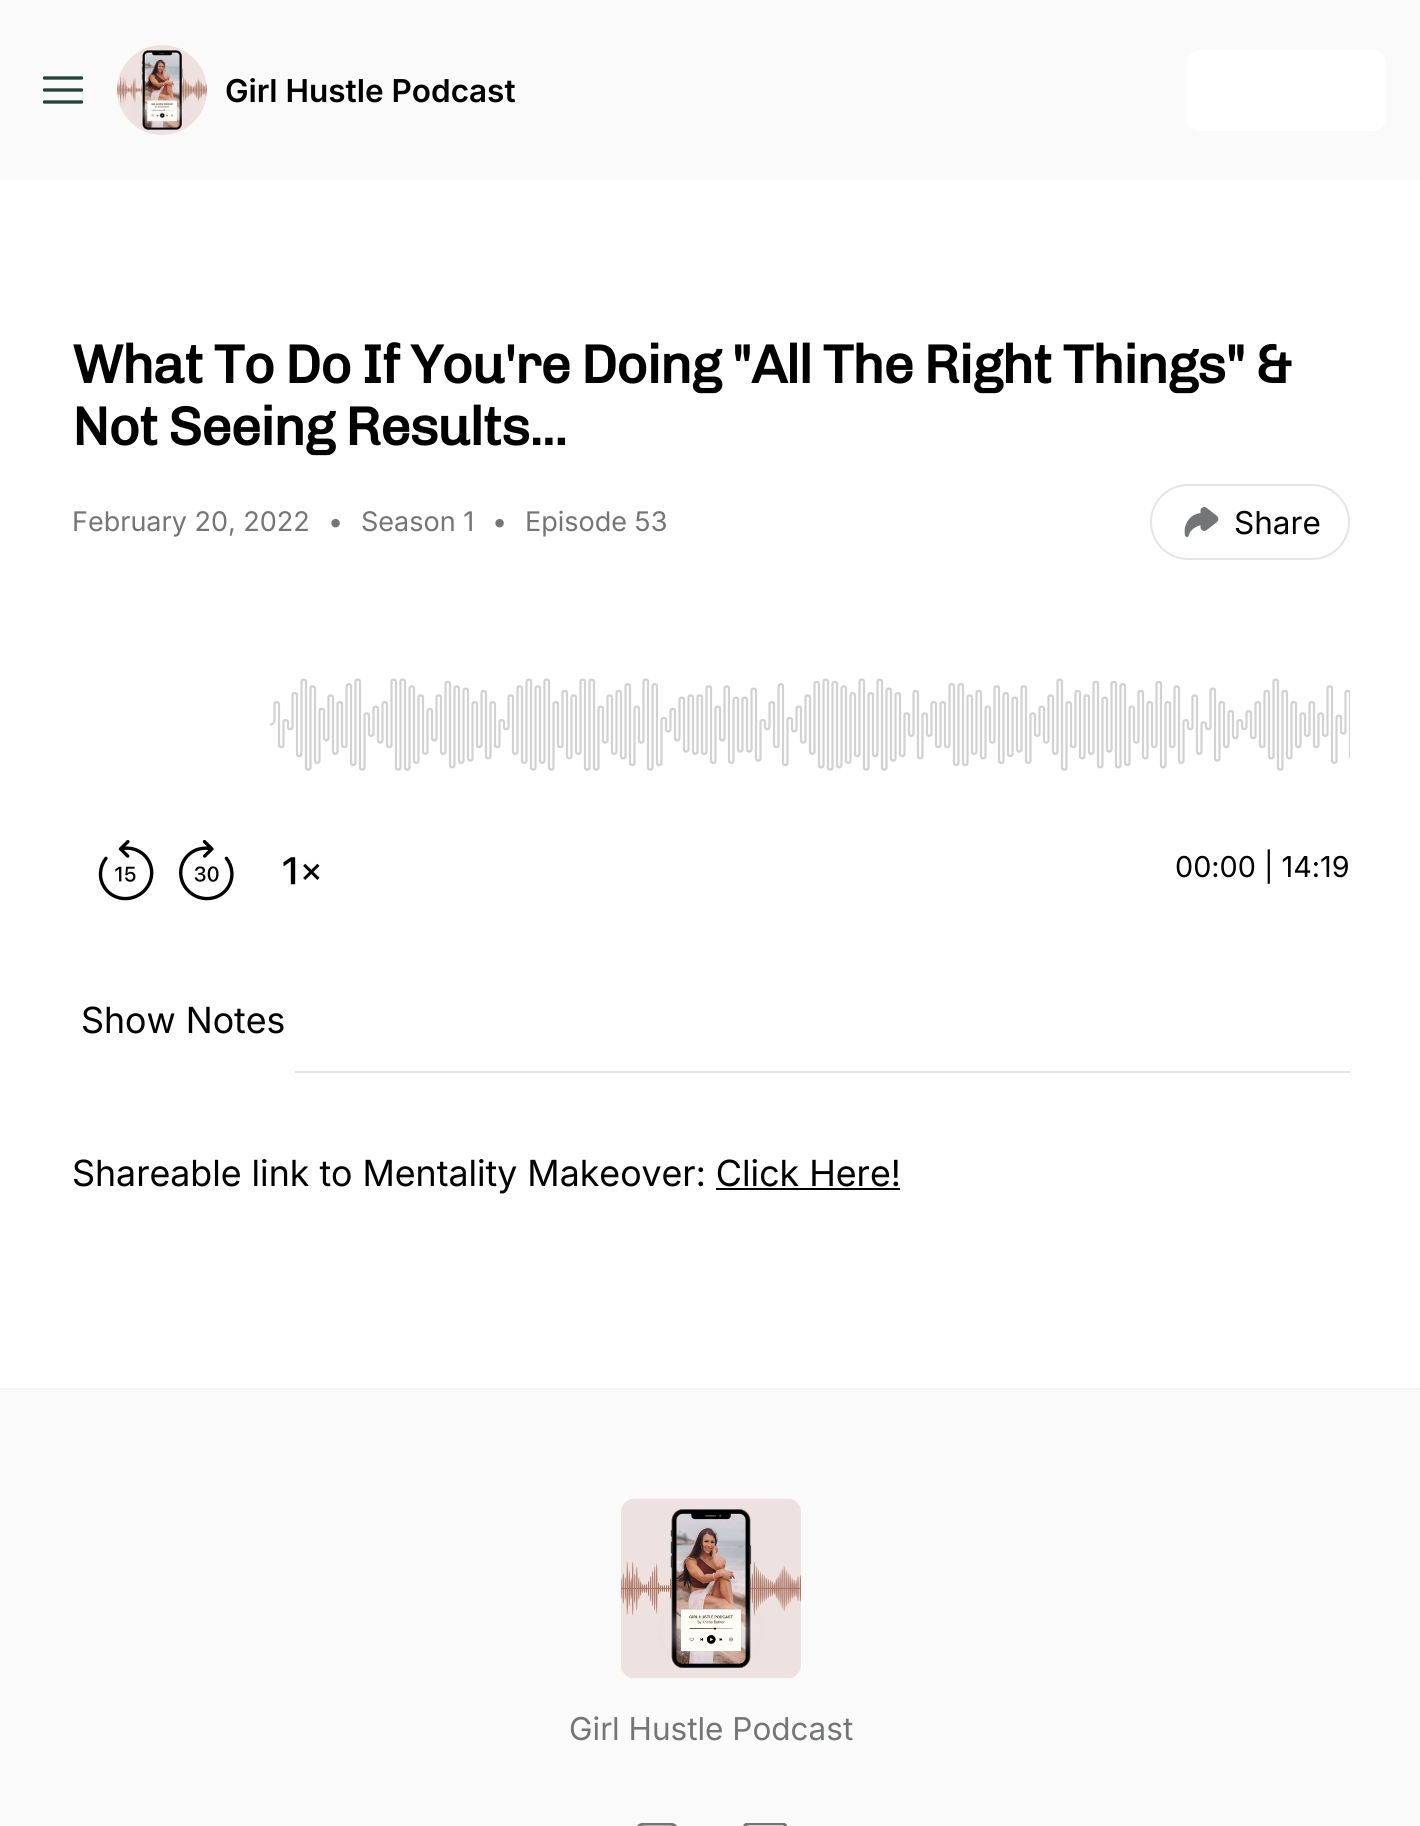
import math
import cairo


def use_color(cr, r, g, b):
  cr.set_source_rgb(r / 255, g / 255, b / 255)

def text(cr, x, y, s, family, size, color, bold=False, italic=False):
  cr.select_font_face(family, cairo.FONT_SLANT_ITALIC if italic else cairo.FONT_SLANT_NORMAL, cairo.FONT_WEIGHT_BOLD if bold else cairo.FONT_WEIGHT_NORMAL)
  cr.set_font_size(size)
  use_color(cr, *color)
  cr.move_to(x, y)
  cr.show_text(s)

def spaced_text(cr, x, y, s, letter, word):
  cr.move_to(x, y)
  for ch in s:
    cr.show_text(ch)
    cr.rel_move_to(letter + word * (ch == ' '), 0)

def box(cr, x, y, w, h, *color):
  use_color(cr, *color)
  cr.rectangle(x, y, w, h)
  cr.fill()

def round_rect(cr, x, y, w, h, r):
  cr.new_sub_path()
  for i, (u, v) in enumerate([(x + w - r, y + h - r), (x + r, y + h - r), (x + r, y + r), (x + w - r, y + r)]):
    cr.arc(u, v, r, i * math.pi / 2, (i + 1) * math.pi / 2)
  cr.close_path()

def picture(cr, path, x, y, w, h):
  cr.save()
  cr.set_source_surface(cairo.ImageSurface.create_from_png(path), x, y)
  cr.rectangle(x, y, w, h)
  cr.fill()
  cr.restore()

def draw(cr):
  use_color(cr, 255, 255, 255)
  cr.paint()
  box(cr, 0, 0, 1420, 180, 250, 250, 250)
  cr.new_path()
  cr.move_to(44.5, 78)
  cr.line_to(81.5, 78)
  cr.move_to(44.5, 90)
  cr.line_to(81.5, 90)
  cr.move_to(44.5, 102)
  cr.line_to(81.5, 102)
  use_color(cr, 33, 69, 56)
  cr.set_line_width(3.4)
  cr.set_line_cap(cairo.LINE_CAP_ROUND)
  cr.set_line_join(cairo.LINE_JOIN_ROUND)
  cr.stroke()
  picture(cr, "img_01.png", 117, 45, 90, 90)
  use_color(cr, 255, 255, 255)
  round_rect(cr, 1186, 50, 200, 81, 14)
  cr.fill()
  round_rect(cr, 1151, 485, 198, 74, 37)
  use_color(cr, 228, 229, 230)
  cr.set_line_width(2)
  cr.set_line_cap(cairo.LINE_CAP_BUTT)
  cr.set_line_join(cairo.LINE_JOIN_MITER)
  cr.stroke()
  picture(cr, "img_02.png", 1184, 507, 35, 30)
  picture(cr, "img_03.png", 98, 840, 56, 61)
  picture(cr, "img_04.png", 179, 839, 55, 62)
  picture(cr, "img_05.png", 283, 857, 37, 28)
  picture(cr, "img_06.png", 270, 678, 1080, 93)
  box(cr, 295, 1071, 1055, 2, 228, 229, 230)
  box(cr, 716, 1188, 184, 2, 0, 0, 0)
  box(cr, 0, 1391, 1420, 435, 250, 250, 250)
  box(cr, 0, 1388, 1420, 2, 244, 244, 244)
  picture(cr, "img_07.png", 621, 1498, 180, 181)
  picture(cr, "img_08.png", 637, 1823, 40, 3)
  picture(cr, "img_09.png", 743, 1823, 45, 3)
  text(cr, 225, 102, "Girl Hustle Podcast", "Inter SemiBold", 31.5, (0, 0, 0))
  cr.select_font_face("Chivo", cairo.FONT_SLANT_NORMAL, cairo.FONT_WEIGHT_BOLD)
  cr.set_font_size(54)
  spaced_text(cr, 72, 383, "What To Do If You're Doing \"All The Right Things\" &", -1.35, 0)
  spaced_text(cr, 72, 445, "Not Seeing Results...", -1.35, 0)
  text(cr, 72, 531, "February 20, 2022", "Inter", 27, (116, 117, 118))
  text(cr, 328, 531, "•", "Inter", 27, (116, 117, 118))
  text(cr, 361, 531, "Season 1", "Inter", 27, (116, 117, 118))
  text(cr, 492, 531, "•", "Inter", 27, (116, 117, 118))
  text(cr, 525, 531, "Episode 53", "Inter", 27, (116, 117, 118))
  text(cr, 1234, 534, "Share", "Inter", 31.5, (0, 0, 0))
  text(cr, 1175, 877, "00:00 | 14:19", "Inter", 28.75, (0, 0, 0))
  text(cr, 81, 1033, "Show Notes", "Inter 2", 36, (0, 0, 0))
  text(cr, 72, 1186, "Shareable link to Mentality Makeover: Click Here!", "Inter 2", 36, (0, 0, 0))
  text(cr, 569, 1740, "Girl Hustle Podcast", "Inter", 31.5, (116, 117, 118))


surface = cairo.ImageSurface(cairo.FORMAT_RGB24, 1420, 1826)
cr = cairo.Context(surface)
options = cairo.FontOptions()
options.set_hint_metrics(cairo.HINT_METRICS_OFF)
options.set_hint_style(cairo.HINT_STYLE_NONE)
cr.set_font_options(options)
cr.set_miter_limit(4)
draw(cr)
surface.write_to_png("out.png")
